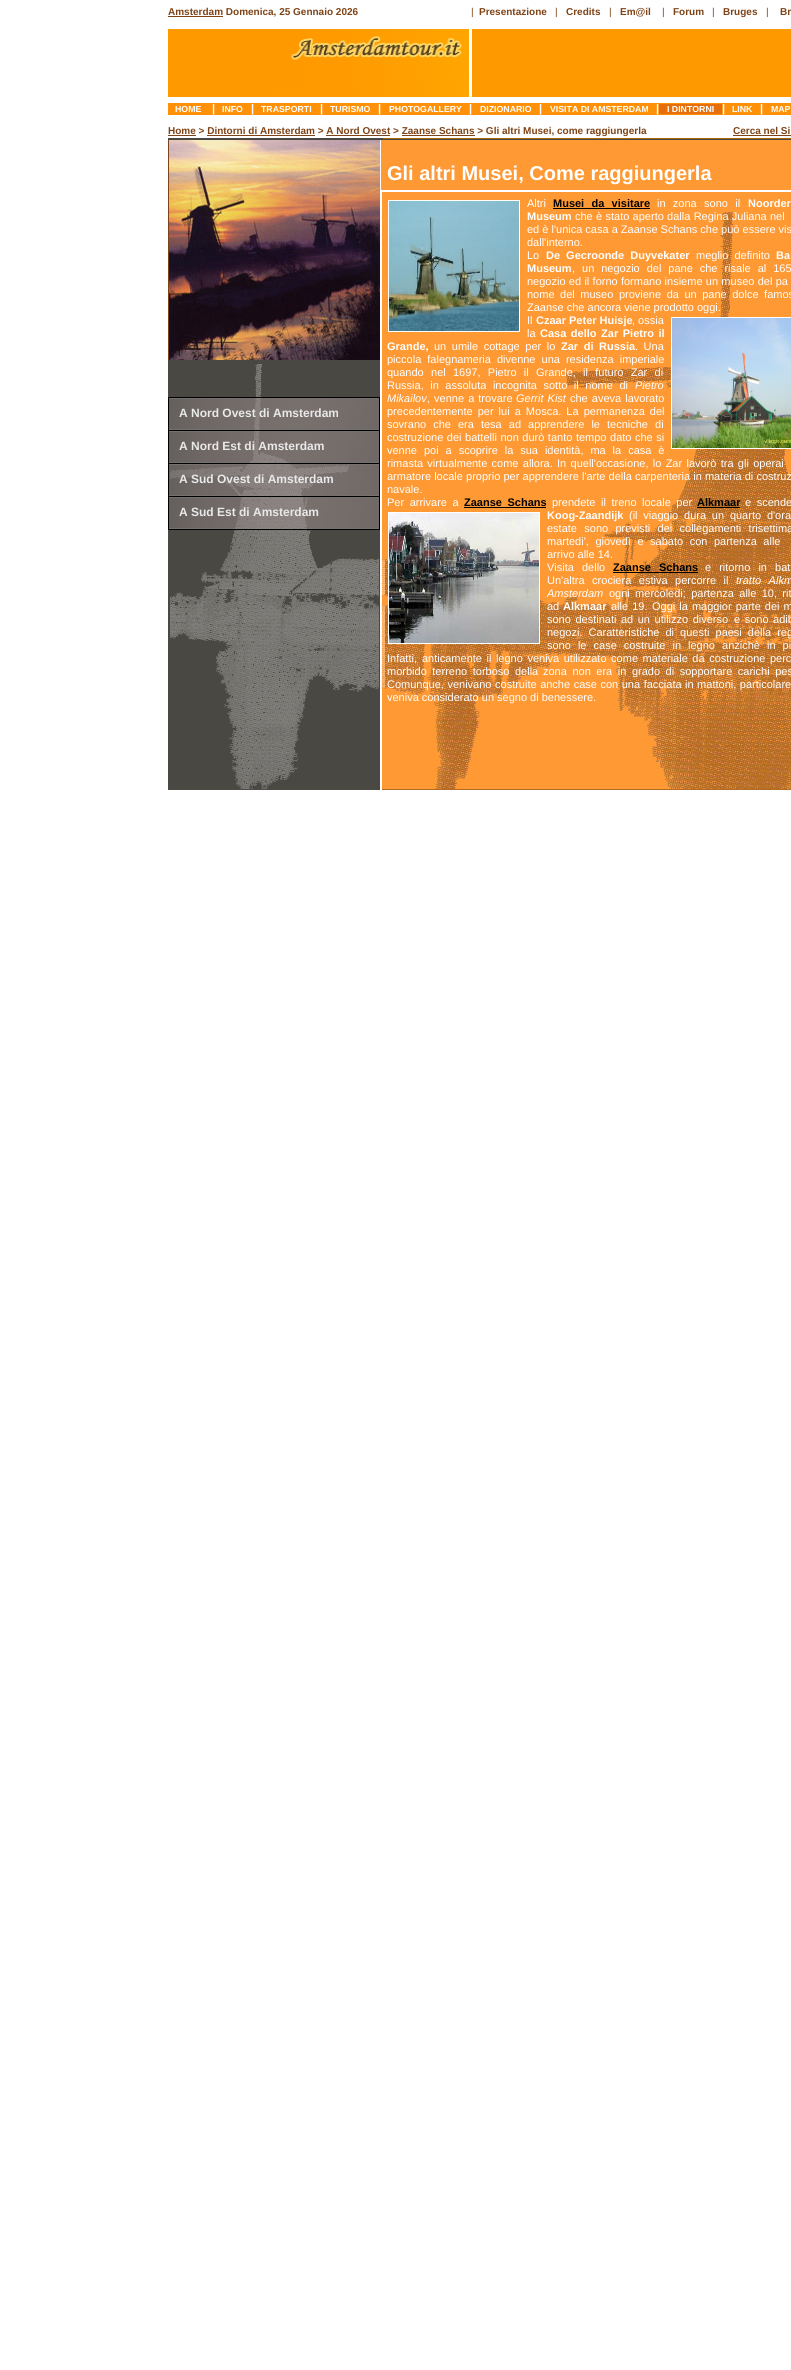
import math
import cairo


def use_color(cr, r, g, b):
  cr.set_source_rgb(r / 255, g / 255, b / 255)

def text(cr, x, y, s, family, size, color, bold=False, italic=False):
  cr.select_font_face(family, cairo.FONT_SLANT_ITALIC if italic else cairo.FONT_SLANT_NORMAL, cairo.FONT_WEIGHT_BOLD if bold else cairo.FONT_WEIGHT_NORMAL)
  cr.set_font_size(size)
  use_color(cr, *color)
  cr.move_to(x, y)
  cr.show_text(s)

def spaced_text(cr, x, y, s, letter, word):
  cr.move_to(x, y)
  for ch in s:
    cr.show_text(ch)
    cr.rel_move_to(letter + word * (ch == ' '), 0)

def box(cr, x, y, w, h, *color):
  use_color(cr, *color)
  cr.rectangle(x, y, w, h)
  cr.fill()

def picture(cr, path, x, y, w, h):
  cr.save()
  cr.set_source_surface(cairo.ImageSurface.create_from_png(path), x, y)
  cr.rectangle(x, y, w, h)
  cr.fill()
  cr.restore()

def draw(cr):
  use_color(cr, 255, 255, 255)
  cr.paint()
  box(cr, 168, 16, 55, 1, 126, 67, 23)
  picture(cr, "img_01.png", 168, 29, 301, 68)
  box(cr, 472, 29, 319, 68, 255, 153, 0)
  box(cr, 168, 103, 623, 12, 255, 145, 9)
  box(cr, 659, 104, 63, 10, 230, 111, 12)
  box(cr, 168, 135, 28, 1, 126, 67, 23)
  box(cr, 207, 135, 108, 1, 126, 67, 23)
  box(cr, 326, 135, 64, 1, 126, 67, 23)
  box(cr, 402, 135, 73, 1, 126, 67, 23)
  box(cr, 733, 135, 58, 1, 126, 67, 23)
  picture(cr, "img_02.png", 168, 138, 213, 222)
  picture(cr, "img_03.png", 168, 360, 212, 37)
  box(cr, 168, 397, 212, 1, 0, 0, 0)
  box(cr, 379, 397, 1, 33, 0, 0, 0)
  box(cr, 168, 397, 1, 33, 0, 0, 0)
  picture(cr, "img_04.png", 169, 398, 210, 32)
  box(cr, 168, 430, 212, 1, 0, 0, 0)
  box(cr, 379, 430, 1, 33, 0, 0, 0)
  box(cr, 168, 430, 1, 33, 0, 0, 0)
  picture(cr, "img_05.png", 169, 431, 210, 32)
  box(cr, 168, 463, 212, 1, 0, 0, 0)
  box(cr, 379, 463, 1, 33, 0, 0, 0)
  box(cr, 168, 463, 1, 33, 0, 0, 0)
  picture(cr, "img_06.png", 169, 464, 210, 32)
  box(cr, 168, 496, 212, 1, 0, 0, 0)
  box(cr, 379, 496, 1, 33, 0, 0, 0)
  box(cr, 168, 496, 1, 33, 0, 0, 0)
  picture(cr, "img_07.png", 169, 497, 210, 32)
  picture(cr, "img_08.png", 168, 529, 212, 99)
  picture(cr, "img_09.png", 168, 628, 212, 162)
  picture(cr, "img_10.png", 381, 138, 410, 652)
  box(cr, 383, 138, 408, 1, 171, 100, 0)
  cr.rectangle(388.5, 200.5, 131, 131)
  use_color(cr, 255, 255, 255)
  cr.set_line_width(1)
  cr.stroke()
  picture(cr, "img_11.png", 389, 201, 130, 130)
  box(cr, 553, 208, 97, 1, 0, 0, 0)
  cr.rectangle(671.5, 317.5, 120, 131)
  use_color(cr, 255, 255, 255)
  cr.stroke()
  picture(cr, "img_12.png", 672, 318, 119, 130)
  box(cr, 464, 507, 82, 1, 0, 0, 0)
  box(cr, 697, 507, 43, 1, 0, 0, 0)
  cr.rectangle(388.5, 512.5, 151, 131)
  use_color(cr, 255, 255, 255)
  cr.stroke()
  picture(cr, "img_13.png", 389, 513, 150, 130)
  box(cr, 613, 572, 85, 1, 0, 0, 0)
  text(cr, 168, 15, "Amsterdam Domenica, 25 Gennaio 2026", "Liberation Sans", 10, (126, 67, 23), bold=True)
  text(cr, 471, 15, "|", "Liberation Sans", 10, (126, 67, 23))
  text(cr, 479, 15, "Presentazione", "Liberation Sans", 10, (126, 67, 23), bold=True)
  text(cr, 555, 15, "|", "Liberation Sans", 10, (126, 67, 23))
  text(cr, 566, 15, "Credits", "Liberation Sans", 10, (126, 67, 23), bold=True)
  text(cr, 609, 15, "|", "Liberation Sans", 10, (126, 67, 23))
  text(cr, 620, 15, "Em@il", "Liberation Sans", 10, (126, 67, 23), bold=True)
  text(cr, 662, 15, "|", "Liberation Sans", 10, (126, 67, 23))
  text(cr, 673, 15, "Forum", "Liberation Sans", 10, (126, 67, 23), bold=True)
  text(cr, 712, 15, "|", "Liberation Sans", 10, (126, 67, 23))
  text(cr, 723, 15, "Bruges", "Liberation Sans", 10, (126, 67, 23), bold=True)
  text(cr, 766, 15, "|", "Liberation Sans", 10, (126, 67, 23))
  text(cr, 780, 15, "Br", "Liberation Sans", 10, (126, 67, 23), bold=True)
  text(cr, 175, 112, "HOME", "Liberation Sans", 8.75, (255, 255, 255), bold=True)
  text(cr, 212, 112, "|", "Liberation Sans", 11, (255, 255, 255), bold=True)
  text(cr, 222, 112, "INFO", "Liberation Sans", 8.75, (255, 255, 255), bold=True)
  text(cr, 251, 112, "|", "Liberation Sans", 11, (255, 255, 255), bold=True)
  text(cr, 261, 112, "TRASPORTI", "Liberation Sans", 8.75, (255, 255, 255), bold=True)
  text(cr, 320, 112, "|", "Liberation Sans", 11, (255, 255, 255), bold=True)
  text(cr, 330, 112, "TURISMO", "Liberation Sans", 8.75, (255, 255, 255), bold=True)
  text(cr, 378, 112, "|", "Liberation Sans", 11, (255, 255, 255), bold=True)
  text(cr, 389, 112, "PHOTOGALLERY", "Liberation Sans", 8.75, (255, 255, 255), bold=True)
  text(cr, 469, 112, "|", "Liberation Sans", 11, (255, 255, 255), bold=True)
  text(cr, 480, 112, "DIZIONARIO", "Liberation Sans", 8.75, (255, 255, 255), bold=True)
  text(cr, 539, 112, "|", "Liberation Sans", 11, (255, 255, 255), bold=True)
  text(cr, 550, 112, "VISITA DI AMSTERDAM", "Liberation Sans", 8.75, (255, 255, 255), bold=True)
  text(cr, 656, 112, "|", "Liberation Sans", 11, (255, 255, 255), bold=True)
  text(cr, 667, 112, "I DINTORNI", "Liberation Sans", 8.75, (255, 255, 255), bold=True)
  text(cr, 722, 112, "|", "Liberation Sans", 11, (255, 255, 255), bold=True)
  text(cr, 732, 112, "LINK", "Liberation Sans", 8.75, (255, 255, 255), bold=True)
  text(cr, 760, 112, "|", "Liberation Sans", 11, (255, 255, 255), bold=True)
  text(cr, 771, 112, "MAP", "Liberation Sans", 8.75, (255, 255, 255), bold=True)
  text(cr, 168, 134, "Home > Dintorni di Amsterdam > A Nord Ovest > Zaanse Schans > Gli altri Musei, come raggiungerla", "Liberation Sans", 10, (126, 67, 23), bold=True)
  text(cr, 733, 134, "Cerca nel Si", "Liberation Sans", 10, (126, 67, 23), bold=True)
  text(cr, 179, 417, "A Nord Ovest di Amsterdam", "Liberation Sans", 12, (233, 233, 233), bold=True)
  text(cr, 179, 450, "A Nord Est di Amsterdam", "Liberation Sans", 12, (233, 233, 233), bold=True)
  text(cr, 179, 483, "A Sud Ovest di Amsterdam", "Liberation Sans", 12, (233, 233, 233), bold=True)
  text(cr, 179, 516, "A Sud Est di Amsterdam", "Liberation Sans", 12, (233, 233, 233), bold=True)
  text(cr, 387, 180, "Gli altri Musei, Come raggiungerla", "Liberation Sans", 20, (255, 255, 255), bold=True)
  text(cr, 527, 207, "Altri", "Liberation Sans", 11, (255, 255, 255))
  cr.select_font_face("Liberation Sans", cairo.FONT_SLANT_NORMAL, cairo.FONT_WEIGHT_BOLD)
  use_color(cr, 0, 0, 0)
  spaced_text(cr, 553, 207, "Musei da visitare", 0, 4.25)
  cr.select_font_face("Liberation Sans")
  use_color(cr, 255, 255, 255)
  spaced_text(cr, 657, 207, "in zona sono il", 0, 4.25)
  text(cr, 748, 207, "Noorder", "Liberation Sans", 11, (255, 255, 255), bold=True)
  text(cr, 527, 220, "Museum", "Liberation Sans", 11, (255, 255, 255), bold=True)
  cr.select_font_face("Liberation Sans")
  spaced_text(cr, 575, 220, "che è stato aperto dalla Regina Juliana nel", 0, 0.25)
  text(cr, 527, 233, "ed è l'unica casa a Zaanse Schans che può essere vis", "Liberation Sans", 11, (255, 255, 255))
  text(cr, 527, 246, "dall'interno.", "Liberation Sans", 11, (255, 255, 255))
  text(cr, 527, 259, "Lo", "Liberation Sans", 11, (255, 255, 255))
  cr.select_font_face("Liberation Sans", cairo.FONT_SLANT_NORMAL, cairo.FONT_WEIGHT_BOLD)
  spaced_text(cr, 546, 259, "De Gecroonde Duyvekater", 0, 3)
  cr.select_font_face("Liberation Sans")
  spaced_text(cr, 696, 259, "meglio definito", 0, 3)
  text(cr, 776, 259, "Ba", "Liberation Sans", 11, (255, 255, 255), bold=True)
  text(cr, 527, 272, "Museum", "Liberation Sans", 11, (255, 255, 255), bold=True)
  cr.select_font_face("Liberation Sans")
  spaced_text(cr, 572, 272, ", un negozio del pane che risale al 165", 0, 3.9)
  spaced_text(cr, 527, 285, "negozio ed il forno formano insieme un museo del pa", 0, 0.25)
  spaced_text(cr, 527, 298, "nome del museo proviene da un pane dolce famos", 0, 2.5)
  text(cr, 527, 311, "Zaanse che ancora viene prodotto oggi.", "Liberation Sans", 11, (255, 255, 255))
  text(cr, 527, 324, "Il", "Liberation Sans", 11, (255, 255, 255))
  text(cr, 536, 324, "Czaar Peter Huisje", "Liberation Sans", 11, (255, 255, 255), bold=True)
  text(cr, 632, 324, ", ossia", "Liberation Sans", 11, (255, 255, 255))
  text(cr, 527, 337, "la", "Liberation Sans", 11, (255, 255, 255))
  cr.select_font_face("Liberation Sans", cairo.FONT_SLANT_NORMAL, cairo.FONT_WEIGHT_BOLD)
  spaced_text(cr, 540, 337, "Casa dello Zar Pietro il", 0, 1.5)
  text(cr, 387, 350, "Grande,", "Liberation Sans", 11, (255, 255, 255), bold=True)
  cr.select_font_face("Liberation Sans")
  spaced_text(cr, 434, 350, "un umile cottage per lo", 0, 2.5)
  cr.select_font_face("Liberation Sans", cairo.FONT_SLANT_NORMAL, cairo.FONT_WEIGHT_BOLD)
  spaced_text(cr, 561, 350, "Zar di Russia", 0, 2.5)
  cr.select_font_face("Liberation Sans")
  spaced_text(cr, 635, 350, ". Una", 0, 2.5)
  spaced_text(cr, 387, 363, "piccola falegnameria divenne una residenza imperiale", 0, 3)
  spaced_text(cr, 387, 376, "quando nel 1697, Pietro il Grande, il futuro Zar di", 0, 4.25)
  spaced_text(cr, 387, 389, "Russia, in assoluta incognita sotto il nome di", 0, 3.5)
  text(cr, 635, 389, "Pietro", "Liberation Sans", 11, (255, 255, 255), italic=True)
  text(cr, 387, 402, "Mikailov", "Liberation Sans", 11, (255, 255, 255), italic=True)
  cr.select_font_face("Liberation Sans")
  spaced_text(cr, 427, 402, ", venne a trovare", 0, 1)
  cr.select_font_face("Liberation Sans", cairo.FONT_SLANT_ITALIC)
  spaced_text(cr, 516, 402, "Gerrit Kist", 0, 1)
  cr.select_font_face("Liberation Sans")
  spaced_text(cr, 570, 402, "che aveva lavorato", 0, 1)
  spaced_text(cr, 387, 415, "precedentemente per lui a Mosca. La permanenza del", 0, 2)
  spaced_text(cr, 387, 428, "sovrano che era tesa ad apprendere le tecniche di", 0, 4)
  spaced_text(cr, 387, 441, "costruzione dei battelli non durò tanto tempo dato che si", 0, 0.5)
  spaced_text(cr, 387, 454, "venne poi a scoprire la sua identità, ma la casa è", 0, 3.9)
  spaced_text(cr, 387, 467, "rimasta virtualmente come allora. In quell'occasione, lo Zar lavorò tra gli operai", 0, 1.25)
  spaced_text(cr, 387, 480, "armatore locale proprio per apprendere l'arte della carpenteria in materia di costruz", 0, 0.1)
  text(cr, 387, 493, "navale.", "Liberation Sans", 11, (255, 255, 255))
  spaced_text(cr, 387, 506, "Per arrivare a", 0, 2.5)
  cr.select_font_face("Liberation Sans", cairo.FONT_SLANT_NORMAL, cairo.FONT_WEIGHT_BOLD)
  use_color(cr, 0, 0, 0)
  spaced_text(cr, 464, 506, "Zaanse Schans", 0, 2.5)
  cr.select_font_face("Liberation Sans")
  use_color(cr, 255, 255, 255)
  spaced_text(cr, 552, 506, "prendete il treno locale per", 0, 2.5)
  text(cr, 697, 506, "Alkmaar", "Liberation Sans", 11, (0, 0, 0), bold=True)
  cr.select_font_face("Liberation Sans")
  use_color(cr, 255, 255, 255)
  spaced_text(cr, 745, 506, "e scende", 0, 2.5)
  text(cr, 547, 519, "Koog-Zaandijk", "Liberation Sans", 11, (255, 255, 255), bold=True)
  cr.select_font_face("Liberation Sans")
  spaced_text(cr, 629, 519, "(il viaggio dura un quarto d'ora", 0, 2.75)
  spaced_text(cr, 547, 532, "estate sono previsti dei collegamenti trisettima", 0, 4.25)
  spaced_text(cr, 547, 545, "martedi', giovedì e sabato con partenza alle", 0, 3.5)
  text(cr, 547, 558, "arrivo alle 14.", "Liberation Sans", 11, (255, 255, 255))
  spaced_text(cr, 547, 571, "Visita dello", 0, 5)
  cr.select_font_face("Liberation Sans", cairo.FONT_SLANT_NORMAL, cairo.FONT_WEIGHT_BOLD)
  use_color(cr, 0, 0, 0)
  spaced_text(cr, 613, 571, "Zaanse Schans", 0, 5)
  cr.select_font_face("Liberation Sans")
  use_color(cr, 255, 255, 255)
  spaced_text(cr, 705, 571, "e ritorno in bat", 0, 5)
  spaced_text(cr, 547, 584, "Un'altra crociera estiva percorre il", 0, 4.5)
  cr.select_font_face("Liberation Sans", cairo.FONT_SLANT_ITALIC)
  spaced_text(cr, 736, 584, "tratto Alkm", 0, 4.5)
  text(cr, 547, 597, "Amsterdam", "Liberation Sans", 11, (255, 255, 255), italic=True)
  cr.select_font_face("Liberation Sans")
  spaced_text(cr, 609, 597, "ogni mercoledi; partenza alle 10, rit", 0, 2.25)
  text(cr, 547, 610, "ad", "Liberation Sans", 11, (255, 255, 255))
  text(cr, 563, 610, "Alkmaar", "Liberation Sans", 11, (255, 255, 255), bold=True)
  cr.select_font_face("Liberation Sans")
  spaced_text(cr, 611, 610, "alle 19.", 0, 1)
  spaced_text(cr, 652, 610, "Oggi la maggior parte dei m", 0, 1)
  spaced_text(cr, 547, 623, "sono destinati ad un utilizzo diverso", 0, 1.5)
  spaced_text(cr, 734, 623, "e sono adib", 0, 1.5)
  spaced_text(cr, 547, 636, "negozi. Caratteristiche di questi paesi della reg", 0, 3)
  spaced_text(cr, 547, 649, "sono le case costruite in legno anzichè in pi", 0, 4)
  text(cr, 387, 662, "Infatti,", "Liberation Sans", 11, (255, 255, 255))
  spaced_text(cr, 422, 662, "anticamente il legno veniva utilizzato come materiale da costruzione perc", 0, 1.5)
  spaced_text(cr, 387, 675, "morbido terreno torboso della", 0, 2.5)
  spaced_text(cr, 543, 675, "zona non era in grado di sopportare carichi pes", 0, 2.5)
  spaced_text(cr, 387, 688, "Comunque, venivano costruite anche case con una facciata", 0, 0.5)
  spaced_text(cr, 685, 688, "in mattoni, particolare", 0, 0.5)
  text(cr, 387, 701, "veniva considerato un segno di benessere.", "Liberation Sans", 11, (255, 255, 255))


surface = cairo.ImageSurface(cairo.FORMAT_RGB24, 791, 2370)
cr = cairo.Context(surface)
options = cairo.FontOptions()
options.set_hint_metrics(cairo.HINT_METRICS_OFF)
options.set_hint_style(cairo.HINT_STYLE_NONE)
cr.set_font_options(options)
cr.set_miter_limit(4)
draw(cr)
surface.write_to_png("out.png")
